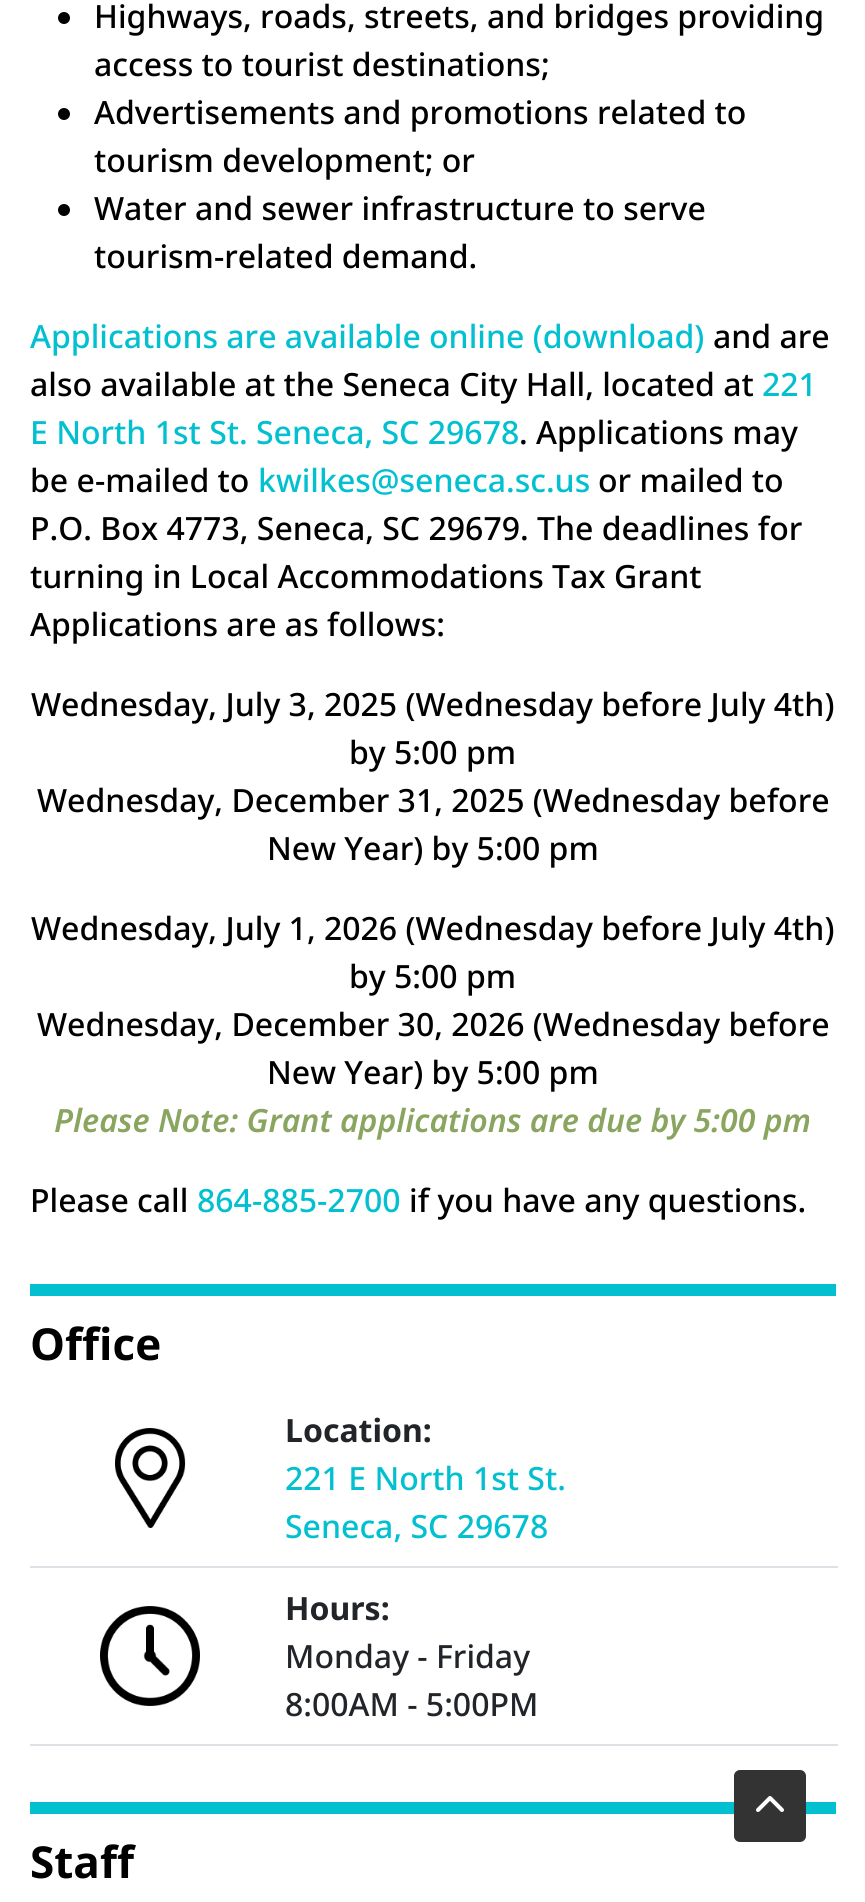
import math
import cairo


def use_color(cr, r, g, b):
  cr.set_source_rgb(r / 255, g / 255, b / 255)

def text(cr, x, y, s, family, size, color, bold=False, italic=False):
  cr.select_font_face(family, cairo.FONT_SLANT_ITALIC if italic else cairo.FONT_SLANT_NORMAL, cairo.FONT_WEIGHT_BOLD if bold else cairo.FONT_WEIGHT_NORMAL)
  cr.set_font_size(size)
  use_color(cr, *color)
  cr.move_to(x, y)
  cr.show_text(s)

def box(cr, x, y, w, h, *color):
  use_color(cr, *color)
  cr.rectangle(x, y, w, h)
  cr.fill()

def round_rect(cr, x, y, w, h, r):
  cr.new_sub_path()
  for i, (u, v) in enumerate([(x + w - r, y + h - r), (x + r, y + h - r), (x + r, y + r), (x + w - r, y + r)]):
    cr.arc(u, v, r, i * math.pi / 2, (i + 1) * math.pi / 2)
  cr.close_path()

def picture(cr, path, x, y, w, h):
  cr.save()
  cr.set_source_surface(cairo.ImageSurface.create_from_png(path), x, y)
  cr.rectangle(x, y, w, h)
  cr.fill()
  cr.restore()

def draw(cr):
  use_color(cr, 255, 255, 255)
  cr.paint()
  use_color(cr, 0, 0, 0)
  cr.arc(64, 18, 6, 0, 2 * math.pi)
  cr.fill()
  cr.arc(64, 114, 6, 0, 2 * math.pi)
  cr.fill()
  cr.arc(64, 210, 6, 0, 2 * math.pi)
  cr.fill()
  box(cr, 30, 1284, 806, 12, 2, 192, 208)
  picture(cr, "img_01.png", 115, 1428, 71, 100)
  box(cr, 30, 1566, 808, 2, 222, 226, 230)
  picture(cr, "img_02.png", 100, 1606, 100, 100)
  box(cr, 30, 1744, 808, 2, 222, 226, 230)
  box(cr, 30, 1802, 806, 12, 2, 192, 208)
  use_color(cr, 51, 51, 51)
  round_rect(cr, 734, 1770, 72, 72, 6)
  cr.fill()
  picture(cr, "img_03.png", 756, 1796, 28, 16)
  text(cr, 94, 28, "Highways, roads, streets, and bridges providing", "Noto Sans Medium", 32, (0, 0, 0))
  text(cr, 94, 76, "access to tourist destinations;", "Noto Sans Medium", 32, (0, 0, 0))
  text(cr, 94, 124, "Advertisements and promotions related to", "Noto Sans Medium", 32, (0, 0, 0))
  text(cr, 94, 172, "tourism development; or", "Noto Sans Medium", 32, (0, 0, 0))
  text(cr, 94, 220, "Water and sewer infrastructure to serve", "Noto Sans Medium", 32, (0, 0, 0))
  text(cr, 94, 268, "tourism-related demand.", "Noto Sans Medium", 32, (0, 0, 0))
  text(cr, 30, 348, "Applications are available online (download)", "Noto Sans Medium", 32, (2, 192, 208))
  text(cr, 713, 348, "and are", "Noto Sans Medium", 32, (0, 0, 0))
  text(cr, 30, 396, "also available at the Seneca City Hall, located at", "Noto Sans Medium", 32, (0, 0, 0))
  text(cr, 762, 396, "221", "Noto Sans Medium", 32, (2, 192, 208))
  text(cr, 30, 444, "E North 1st St. Seneca, SC 29678", "Noto Sans Medium", 32, (2, 192, 208))
  text(cr, 519, 444, ". Applications may", "Noto Sans Medium", 32, (0, 0, 0))
  text(cr, 30, 492, "be e-mailed to", "Noto Sans Medium", 32, (0, 0, 0))
  text(cr, 258, 492, "kwilkes@seneca.sc.us", "Noto Sans Medium", 32, (2, 192, 208))
  text(cr, 598, 492, "or mailed to", "Noto Sans Medium", 32, (0, 0, 0))
  text(cr, 30, 540, "P.O. Box 4773, Seneca, SC 29679. The deadlines for", "Noto Sans Medium", 32, (0, 0, 0))
  text(cr, 30, 588, "turning in Local Accommodations Tax Grant", "Noto Sans Medium", 32, (0, 0, 0))
  text(cr, 30, 636, "Applications are as follows:", "Noto Sans Medium", 32, (0, 0, 0))
  text(cr, 31, 716, "Wednesday, July 3, 2025 (Wednesday before July 4th)", "Noto Sans Medium", 32, (0, 0, 0))
  text(cr, 349, 764, "by 5:00 pm", "Noto Sans Medium", 32, (0, 0, 0))
  text(cr, 37, 812, "Wednesday, December 31, 2025 (Wednesday before", "Noto Sans Medium", 32, (0, 0, 0))
  text(cr, 267, 860, "New Year) by 5:00 pm", "Noto Sans Medium", 32, (0, 0, 0))
  text(cr, 31, 940, "Wednesday, July 1, 2026 (Wednesday before July 4th)", "Noto Sans Medium", 32, (0, 0, 0))
  text(cr, 349, 988, "by 5:00 pm", "Noto Sans Medium", 32, (0, 0, 0))
  text(cr, 37, 1036, "Wednesday, December 30, 2026 (Wednesday before", "Noto Sans Medium", 32, (0, 0, 0))
  text(cr, 267, 1084, "New Year) by 5:00 pm", "Noto Sans Medium", 32, (0, 0, 0))
  text(cr, 54, 1132, "Please Note: Grant applications are due by 5:00 pm", "Noto Sans SemiBold", 32, (138, 165, 95), italic=True)
  text(cr, 30, 1212, "Please call", "Noto Sans Medium", 32, (0, 0, 0))
  text(cr, 197, 1212, "864-885-2700", "Noto Sans Medium", 32, (2, 192, 208))
  text(cr, 409, 1212, "if you have any questions.", "Noto Sans Medium", 32, (0, 0, 0))
  text(cr, 30, 1360, "Office", "Open Sans", 44, (0, 0, 0), bold=True)
  text(cr, 285, 1442, "Location:", "Noto Sans", 32, (33, 37, 41), bold=True)
  text(cr, 285, 1490, "221 E North 1st St.", "Noto Sans Medium", 32, (2, 192, 208))
  text(cr, 285, 1538, "Seneca, SC 29678", "Noto Sans Medium", 32, (2, 192, 208))
  text(cr, 285, 1620, "Hours:", "Noto Sans", 32, (33, 37, 41), bold=True)
  text(cr, 285, 1668, "Monday - Friday", "Noto Sans Medium", 32, (33, 37, 41))
  text(cr, 285, 1716, "8:00AM - 5:00PM", "Noto Sans Medium", 32, (33, 37, 41))
  text(cr, 30, 1878, "Staff", "Open Sans", 44, (0, 0, 0), bold=True)


surface = cairo.ImageSurface(cairo.FORMAT_RGB24, 865, 1902)
cr = cairo.Context(surface)
options = cairo.FontOptions()
options.set_hint_metrics(cairo.HINT_METRICS_OFF)
options.set_hint_style(cairo.HINT_STYLE_NONE)
cr.set_font_options(options)
cr.set_miter_limit(4)
draw(cr)
surface.write_to_png("out.png")
